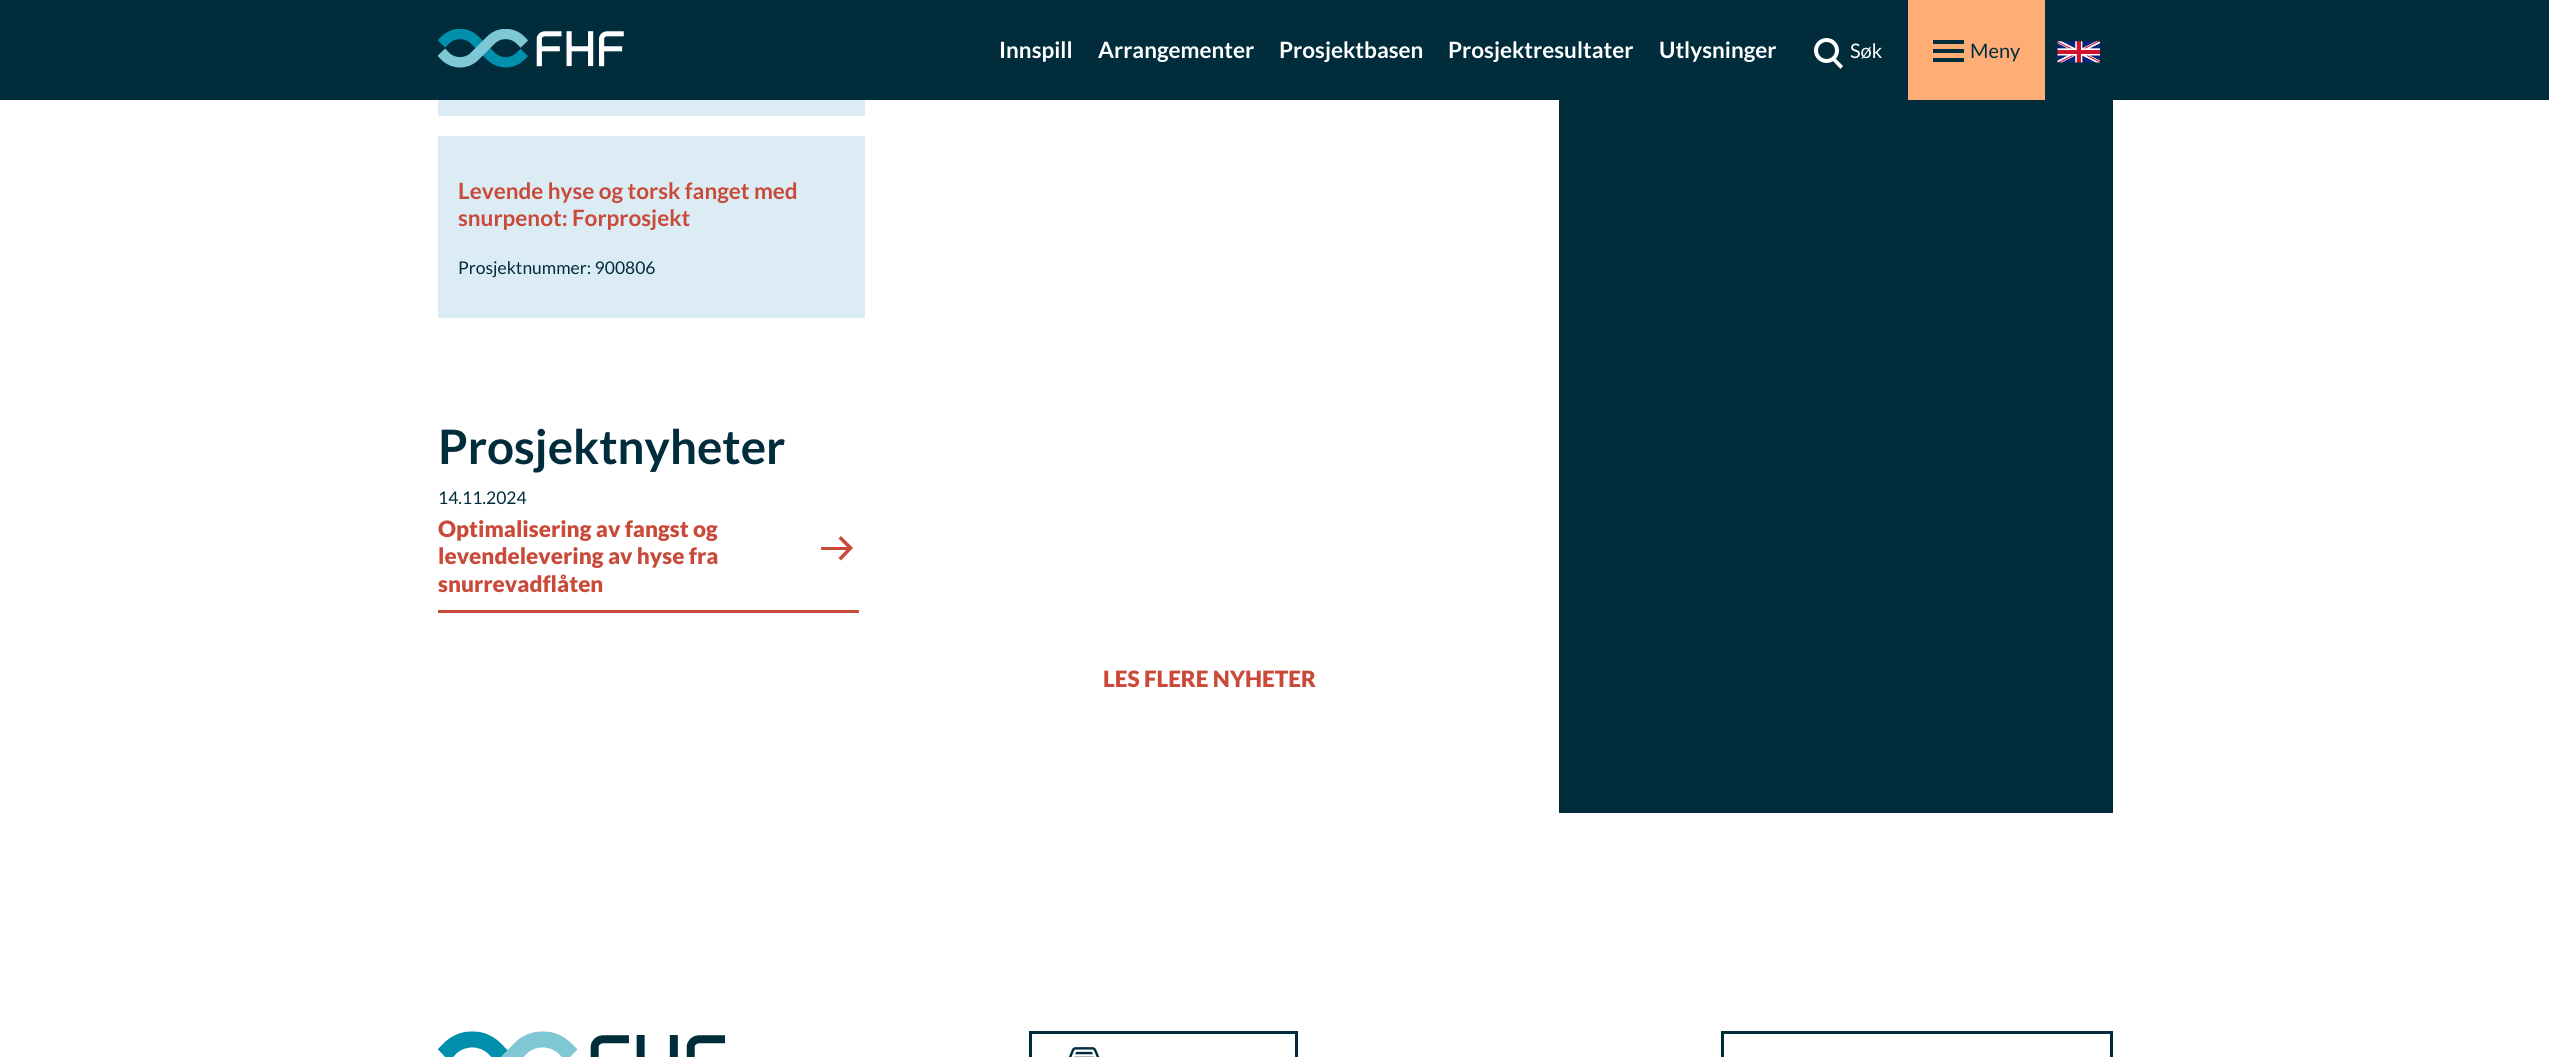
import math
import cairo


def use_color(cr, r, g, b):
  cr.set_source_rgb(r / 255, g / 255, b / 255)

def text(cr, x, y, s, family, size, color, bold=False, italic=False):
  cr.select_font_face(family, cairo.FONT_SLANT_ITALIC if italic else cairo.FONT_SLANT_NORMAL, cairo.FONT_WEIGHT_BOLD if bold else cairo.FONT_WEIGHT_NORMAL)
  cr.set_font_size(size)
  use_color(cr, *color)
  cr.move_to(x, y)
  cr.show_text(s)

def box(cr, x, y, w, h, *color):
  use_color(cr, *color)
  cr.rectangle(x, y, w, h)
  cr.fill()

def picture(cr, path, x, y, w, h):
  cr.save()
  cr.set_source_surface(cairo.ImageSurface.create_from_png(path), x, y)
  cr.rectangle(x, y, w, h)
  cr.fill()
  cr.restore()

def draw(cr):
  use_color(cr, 255, 255, 255)
  cr.paint()
  box(cr, 0, 0, 2549, 100, 0, 44, 59)
  picture(cr, "img_01.png", 438, 29, 186, 39)
  cr.arc(1826.5, 50.5, 10.5, 0, 2 * math.pi)
  use_color(cr, 255, 255, 255)
  cr.set_line_width(4)
  cr.stroke()
  cr.new_path()
  cr.move_to(1834.5, 57.5)
  cr.line_to(1843, 66)
  cr.line_to(1840.5, 69)
  cr.line_to(1832, 60)
  cr.close_path()
  cr.fill()
  box(cr, 1908, 0, 137, 100, 254, 173, 119)
  box(cr, 1933, 49, 31, 4, 0, 44, 59)
  box(cr, 1933, 40, 31, 4, 0, 44, 59)
  box(cr, 1933, 58, 31, 4, 0, 44, 59)
  picture(cr, "img_02.png", 2057, 41, 43, 22)
  box(cr, 438, 100, 427, 16, 219, 236, 244)
  box(cr, 438, 136, 427, 182, 219, 236, 244)
  box(cr, 438, 610, 421, 3, 202, 74, 58)
  box(cr, 821, 547, 28, 3, 202, 74, 58)
  cr.new_path()
  cr.move_to(841, 560.5)
  cr.line_to(838.5, 558)
  cr.line_to(848, 548)
  cr.line_to(838.5, 538.5)
  cr.line_to(841, 536)
  cr.line_to(853, 548)
  cr.close_path()
  cr.fill()
  box(cr, 1559, 100, 554, 713, 0, 44, 59)
  picture(cr, "img_03.png", 438, 1031, 287, 26)
  cr.rectangle(1030.5, 1032.5, 266, 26)
  cr.set_line_width(3)
  cr.stroke()
  picture(cr, "img_04.png", 1068, 1047, 32, 10)
  cr.rectangle(1722.5, 1032.5, 389, 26)
  cr.stroke()
  text(cr, 999, 58, "Innspill", "Lato", 22.5, (255, 255, 255), bold=True)
  text(cr, 1098, 58, "Arrangementer", "Lato", 22.5, (255, 255, 255), bold=True)
  text(cr, 1279, 58, "Prosjektbasen", "Lato", 22.5, (255, 255, 255), bold=True)
  text(cr, 1448, 58, "Prosjektresultater", "Lato", 22.5, (255, 255, 255), bold=True)
  text(cr, 1659, 58, "Utlysninger", "Lato", 22.5, (255, 255, 255), bold=True)
  text(cr, 1850, 58, "Søk", "Lato", 20, (255, 255, 255))
  text(cr, 1970, 58, "Meny", "Lato", 20, (0, 44, 59))
  text(cr, 458, 199, "Levende hyse og torsk fanget med", "Lato", 22.5, (202, 74, 58), bold=True)
  text(cr, 458, 226, "snurpenot: Forprosjekt", "Lato", 22.5, (202, 74, 58), bold=True)
  text(cr, 458, 274, "Prosjektnummer: 900806", "Lato", 17.5, (0, 44, 59))
  text(cr, 438, 464, "Prosjektnyheter", "Lato", 47.5, (0, 44, 59), bold=True)
  text(cr, 438, 504, "14.11.2024", "Lato", 17.5, (0, 44, 59))
  text(cr, 438, 537, "Optimalisering av fangst og", "Lato Black", 22.5, (202, 74, 58))
  text(cr, 438, 564, "levendelevering av hyse fra", "Lato Black", 22.5, (202, 74, 58))
  text(cr, 438, 592, "snurrevadflåten", "Lato Black", 22.5, (202, 74, 58))
  text(cr, 1103, 687, "LES FLERE NYHETER", "Lato Black", 22.5, (202, 74, 58))


surface = cairo.ImageSurface(cairo.FORMAT_RGB24, 2549, 1057)
cr = cairo.Context(surface)
options = cairo.FontOptions()
options.set_hint_metrics(cairo.HINT_METRICS_OFF)
options.set_hint_style(cairo.HINT_STYLE_NONE)
cr.set_font_options(options)
cr.set_miter_limit(4)
draw(cr)
surface.write_to_png("out.png")
